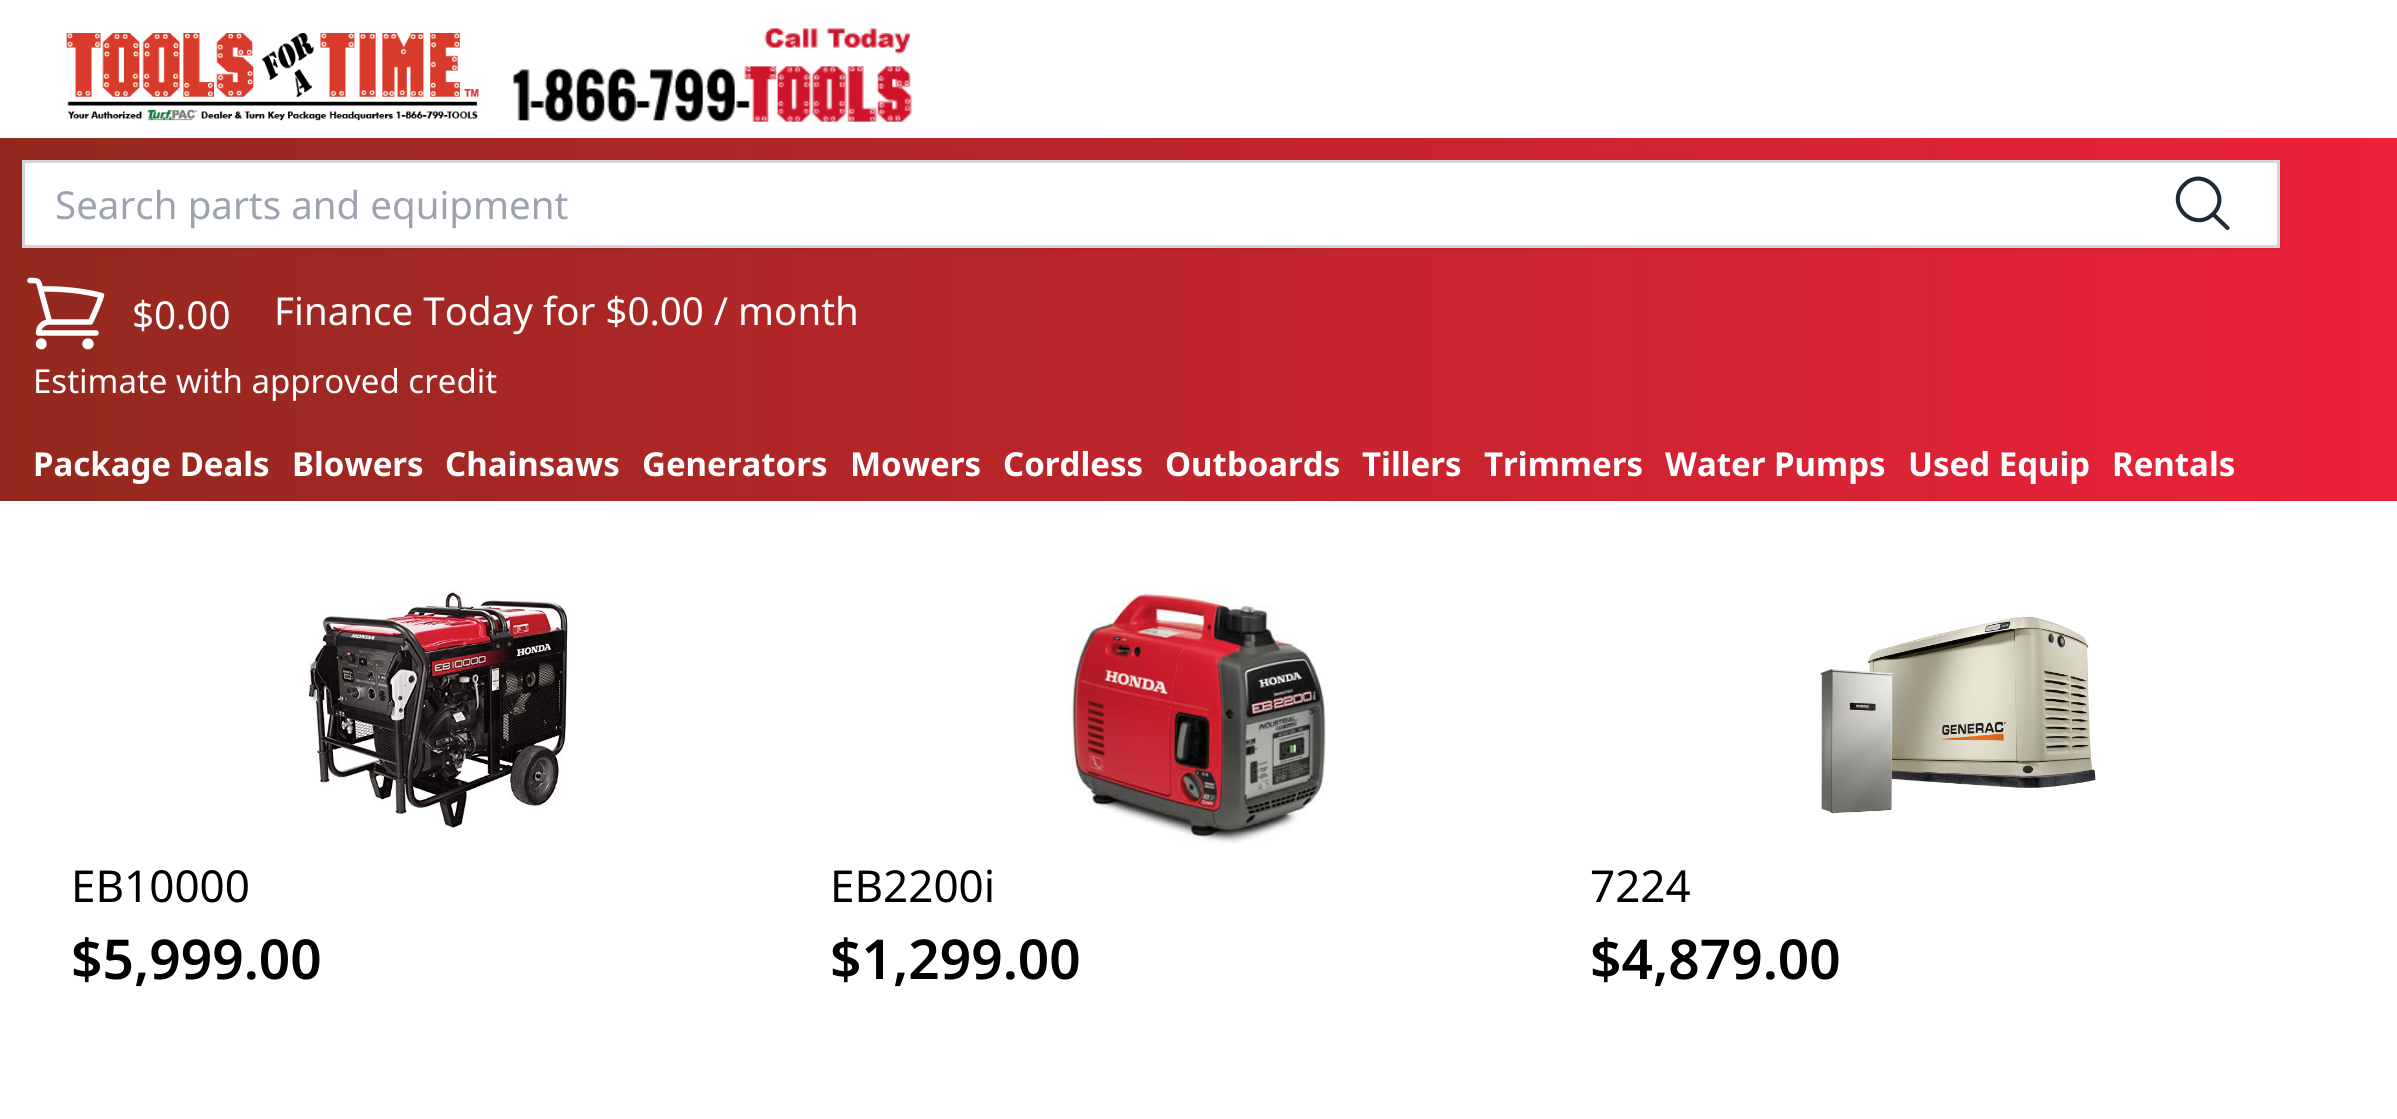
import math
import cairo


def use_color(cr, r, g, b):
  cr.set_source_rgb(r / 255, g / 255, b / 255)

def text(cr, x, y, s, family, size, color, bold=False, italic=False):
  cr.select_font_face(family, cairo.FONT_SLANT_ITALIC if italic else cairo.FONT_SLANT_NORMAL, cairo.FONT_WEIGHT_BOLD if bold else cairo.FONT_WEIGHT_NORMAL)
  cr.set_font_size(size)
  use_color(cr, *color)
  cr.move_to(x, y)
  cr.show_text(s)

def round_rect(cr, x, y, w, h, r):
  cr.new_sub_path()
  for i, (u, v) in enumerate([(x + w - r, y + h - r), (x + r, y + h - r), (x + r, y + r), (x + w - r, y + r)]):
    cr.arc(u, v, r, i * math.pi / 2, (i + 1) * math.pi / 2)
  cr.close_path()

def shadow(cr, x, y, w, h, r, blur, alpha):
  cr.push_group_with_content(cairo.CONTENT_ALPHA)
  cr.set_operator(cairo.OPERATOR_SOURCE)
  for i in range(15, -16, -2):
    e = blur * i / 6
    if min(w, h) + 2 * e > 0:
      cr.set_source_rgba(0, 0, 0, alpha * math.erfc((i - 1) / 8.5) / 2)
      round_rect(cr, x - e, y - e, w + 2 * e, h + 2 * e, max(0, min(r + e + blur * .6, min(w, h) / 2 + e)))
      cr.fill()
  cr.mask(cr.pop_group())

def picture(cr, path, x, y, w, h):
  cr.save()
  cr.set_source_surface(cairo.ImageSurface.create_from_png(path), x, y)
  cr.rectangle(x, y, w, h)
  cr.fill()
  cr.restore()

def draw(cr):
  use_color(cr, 255, 255, 255)
  cr.paint()
  picture(cr, "img_01.png", 66, 33, 413, 88)
  picture(cr, "img_02.png", 513, 28, 399, 94)
  gradient = cairo.LinearGradient(0, 319, 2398, 319)
  gradient.add_color_stop_rgba(0, 0.576, 0.161, 0.118, 1)
  gradient.add_color_stop_rgba(1, 0.929, 0.129, 0.227, 1)
  cr.set_source(gradient)
  cr.rectangle(0, 138, 2397, 363)
  cr.fill()
  use_color(cr, 0, 0, 0)
  shadow(cr, 22, 162, 2258, 88, 0, 3, 0.05)
  use_color(cr, 255, 255, 255)
  cr.rectangle(23.5, 161.5, 2255, 85)
  cr.fill_preserve()
  use_color(cr, 209, 213, 219)
  cr.set_line_width(3)
  cr.stroke()
  cr.new_path()
  cr.move_to(2227.5, 228)
  cr.line_to(2213, 214)
  cr.move_to(2213, 214)
  cr.curve_to(2232.5, 195, 2203, 165.5, 2184, 185)
  cr.curve_to(2165, 204, 2194, 233, 2213, 214)
  cr.close_path()
  use_color(cr, 31, 41, 55)
  cr.set_line_width(4.1)
  cr.set_line_cap(cairo.LINE_CAP_ROUND)
  cr.set_line_join(cairo.LINE_JOIN_ROUND)
  cr.stroke()
  cr.new_path()
  cr.move_to(30, 280.5)
  cr.curve_to(39, 280.5, 38.5, 280.5, 40.5, 289)
  cr.move_to(49.5, 322)
  cr.curve_to(43.5, 322, 38.5, 326.5, 38.5, 333)
  cr.line_to(96, 333)
  cr.move_to(49.5, 322)
  cr.line_to(90.5, 322)
  cr.curve_to(94.5, 313.5, 98.5, 304.5, 101.5, 295.5)
  cr.curve_to(81.5, 290.5, 61, 288.5, 40.5, 289)
  cr.move_to(49.5, 322)
  cr.line_to(40.5, 289)
  cr.move_to(44, 344)
  cr.curve_to(44, 347.5, 38.5, 347.5, 38.5, 344)
  cr.curve_to(38.5, 340, 44, 340, 44, 344)
  cr.close_path()
  cr.move_to(91, 344)
  cr.curve_to(91, 347.5, 85, 347.5, 85, 344)
  cr.curve_to(85, 340, 91, 340, 91, 344)
  cr.close_path()
  use_color(cr, 255, 255, 255)
  cr.set_line_width(5.5)
  cr.stroke()
  picture(cr, "img_03.png", 308, 589, 264, 242)
  picture(cr, "img_04.png", 1070, 586, 256, 258)
  picture(cr, "img_05.png", 1820, 616, 276, 198)
  text(cr, 55, 219, "Search parts and equipment", "Noto Sans", 38.5, (156, 163, 175))
  text(cr, 132, 329, "$0.00", "Noto Sans", 38.5, (255, 255, 255))
  text(cr, 274, 325, "Finance Today for $0.00 / month", "Noto Sans", 38.5, (255, 255, 255))
  text(cr, 33, 393, "Estimate with approved credit", "Noto Sans", 33, (255, 255, 255))
  text(cr, 33, 476, "Package Deals", "Noto Sans", 33, (255, 255, 255), bold=True)
  text(cr, 292, 476, "Blowers", "Noto Sans", 33, (255, 255, 255), bold=True)
  text(cr, 445, 476, "Chainsaws", "Noto Sans", 33, (255, 255, 255), bold=True)
  text(cr, 642, 476, "Generators", "Noto Sans", 33, (255, 255, 255), bold=True)
  text(cr, 850, 476, "Mowers", "Noto Sans", 33, (255, 255, 255), bold=True)
  text(cr, 1003, 476, "Cordless", "Noto Sans", 33, (255, 255, 255), bold=True)
  text(cr, 1165, 476, "Outboards", "Noto Sans", 33, (255, 255, 255), bold=True)
  text(cr, 1362, 476, "Tillers", "Noto Sans", 33, (255, 255, 255), bold=True)
  text(cr, 1484, 476, "Trimmers", "Noto Sans", 33, (255, 255, 255), bold=True)
  text(cr, 1665, 476, "Water Pumps", "Noto Sans", 33, (255, 255, 255), bold=True)
  text(cr, 1908, 476, "Used Equip", "Noto Sans", 33, (255, 255, 255), bold=True)
  text(cr, 2112, 476, "Rentals", "Noto Sans", 33, (255, 255, 255), bold=True)
  text(cr, 71, 902, "EB10000", "Noto Sans", 44, (0, 0, 0))
  text(cr, 71, 979, "$5,999.00", "Noto Sans SemiBold", 55, (0, 0, 0))
  text(cr, 830, 902, "EB2200i", "Noto Sans", 44, (0, 0, 0))
  text(cr, 830, 979, "$1,299.00", "Noto Sans SemiBold", 55, (0, 0, 0))
  text(cr, 1590, 902, "7224", "Noto Sans", 44, (0, 0, 0))
  text(cr, 1590, 979, "$4,879.00", "Noto Sans SemiBold", 55, (0, 0, 0))


surface = cairo.ImageSurface(cairo.FORMAT_RGB24, 2397, 1119)
cr = cairo.Context(surface)
options = cairo.FontOptions()
options.set_hint_metrics(cairo.HINT_METRICS_OFF)
options.set_hint_style(cairo.HINT_STYLE_NONE)
cr.set_font_options(options)
cr.set_miter_limit(4)
draw(cr)
surface.write_to_png("out.png")
